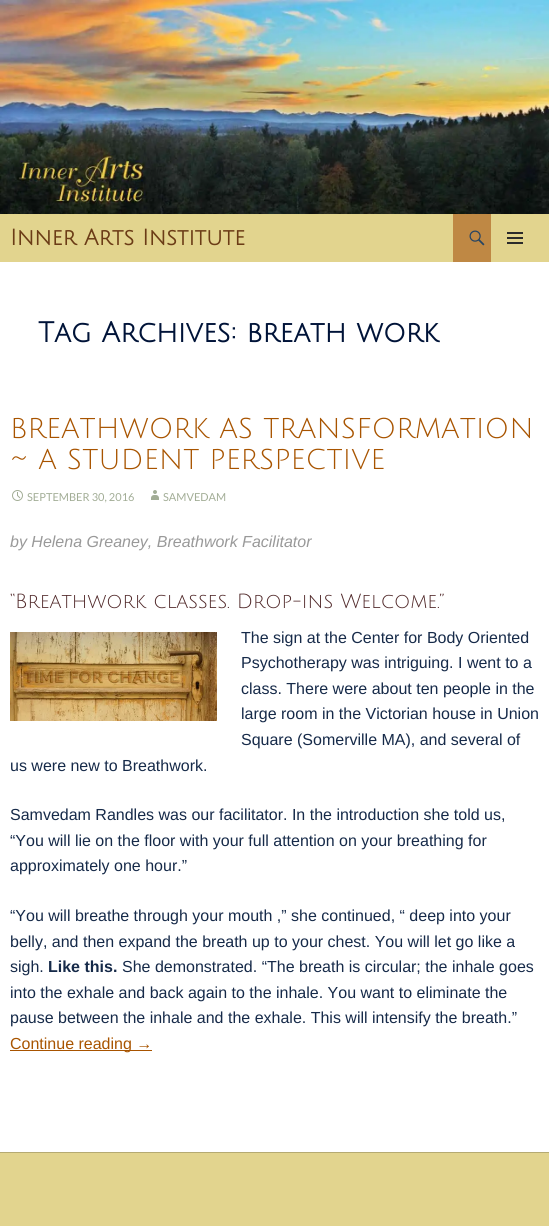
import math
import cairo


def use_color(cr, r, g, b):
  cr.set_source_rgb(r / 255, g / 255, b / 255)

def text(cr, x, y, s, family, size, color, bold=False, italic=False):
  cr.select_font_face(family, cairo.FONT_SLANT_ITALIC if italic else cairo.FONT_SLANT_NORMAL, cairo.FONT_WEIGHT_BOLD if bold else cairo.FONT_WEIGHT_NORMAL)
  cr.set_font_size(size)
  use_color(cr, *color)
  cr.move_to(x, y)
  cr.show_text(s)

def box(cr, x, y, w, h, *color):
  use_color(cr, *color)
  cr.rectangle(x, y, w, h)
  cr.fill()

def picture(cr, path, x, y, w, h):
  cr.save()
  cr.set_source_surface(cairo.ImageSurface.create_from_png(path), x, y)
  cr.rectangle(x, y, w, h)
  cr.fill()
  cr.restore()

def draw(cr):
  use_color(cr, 255, 255, 255)
  cr.paint()
  picture(cr, "img_01.png", 0, 0, 549, 214)
  box(cr, 0, 214, 549, 48, 226, 212, 142)
  box(cr, 453, 214, 38, 48, 191, 136, 68)
  picture(cr, "img_02.png", 469, 230, 16, 16)
  picture(cr, "img_03.png", 507, 232, 16, 12)
  picture(cr, "img_04.png", 12, 490, 11, 11)
  picture(cr, "img_05.png", 151, 490, 8, 10)
  picture(cr, "img_06.png", 10, 632, 207, 89)
  box(cr, 10, 1050, 142, 1, 168, 84, 0)
  box(cr, 0, 1153, 549, 73, 226, 212, 142)
  box(cr, 0, 1152, 549, 1, 181, 170, 114)
  text(cr, 10, 245, "Inner Arts Institute", "Julius Sans One", 22, (107, 60, 22), bold=True)
  text(cr, 38, 342, "Tag Archives: breath work", "Julius Sans One", 28, (0, 19, 56), bold=True)
  text(cr, 10, 438, "BREATHWORK AS TRANSFORMATION", "Julius Sans One", 28, (168, 84, 0))
  text(cr, 10, 469, "~ A STUDENT PERSPECTIVE", "Julius Sans One", 28, (168, 84, 0))
  text(cr, 27, 501, "SEPTEMBER 30, 2016", "Lato", 11, (162, 173, 150))
  text(cr, 163, 501, "SAMVEDAM", "Lato", 11, (162, 173, 150))
  text(cr, 10, 547, "by Helena Greaney, Breathwork Facilitator", "Liberation Sans", 16, (153, 153, 153), italic=True)
  text(cr, 10, 608, "“Breathwork classes. Drop-ins Welcome.”", "Julius Sans One", 20, (79, 39, 40))
  text(cr, 241, 643, "The sign at the Center for Body Oriented", "Liberation Sans", 16, (22, 42, 73))
  text(cr, 241, 668, "Psychotherapy was intriguing. I went to a", "Liberation Sans", 16, (22, 42, 73))
  text(cr, 241, 694, "class. There were about ten people in the", "Liberation Sans", 16, (22, 42, 73))
  text(cr, 241, 719, "large room in the Victorian house in Union", "Liberation Sans", 16, (22, 42, 73))
  text(cr, 241, 745, "Square (Somerville MA), and several of", "Liberation Sans", 16, (22, 42, 73))
  text(cr, 10, 771, "us were new to Breathwork.", "Liberation Sans", 16, (22, 42, 73))
  text(cr, 10, 820, "Samvedam Randles was our facilitator. In the introduction she told us,", "Liberation Sans", 16, (22, 42, 73))
  text(cr, 10, 846, "“You will lie on the floor with your full attention on your breathing for", "Liberation Sans", 16, (22, 42, 73))
  text(cr, 10, 871, "approximately one hour.”", "Liberation Sans", 16, (22, 42, 73))
  text(cr, 10, 921, "“You will breathe through your mouth ,” she continued, “ deep into your", "Liberation Sans", 16, (22, 42, 73))
  text(cr, 10, 947, "belly, and then expand the breath up to your chest. You will let go like a", "Liberation Sans", 16, (22, 42, 73))
  text(cr, 10, 972, "sigh.", "Liberation Sans", 16, (22, 42, 73))
  text(cr, 48, 972, "Like this.", "Liberation Sans", 16, (22, 42, 73), bold=True)
  text(cr, 122, 972, "She demonstrated. “The breath is circular; the inhale goes", "Liberation Sans", 16, (22, 42, 73))
  text(cr, 10, 998, "into the exhale and back again to the inhale. You want to eliminate the", "Liberation Sans", 16, (22, 42, 73))
  text(cr, 10, 1023, "pause between the inhale and the exhale. This will intensify the breath.”", "Liberation Sans", 16, (22, 42, 73))
  text(cr, 10, 1049, "Continue reading →", "Liberation Sans", 16, (168, 84, 0))


surface = cairo.ImageSurface(cairo.FORMAT_RGB24, 549, 1226)
cr = cairo.Context(surface)
options = cairo.FontOptions()
options.set_hint_metrics(cairo.HINT_METRICS_OFF)
options.set_hint_style(cairo.HINT_STYLE_NONE)
cr.set_font_options(options)
cr.set_miter_limit(4)
draw(cr)
surface.write_to_png("out.png")
